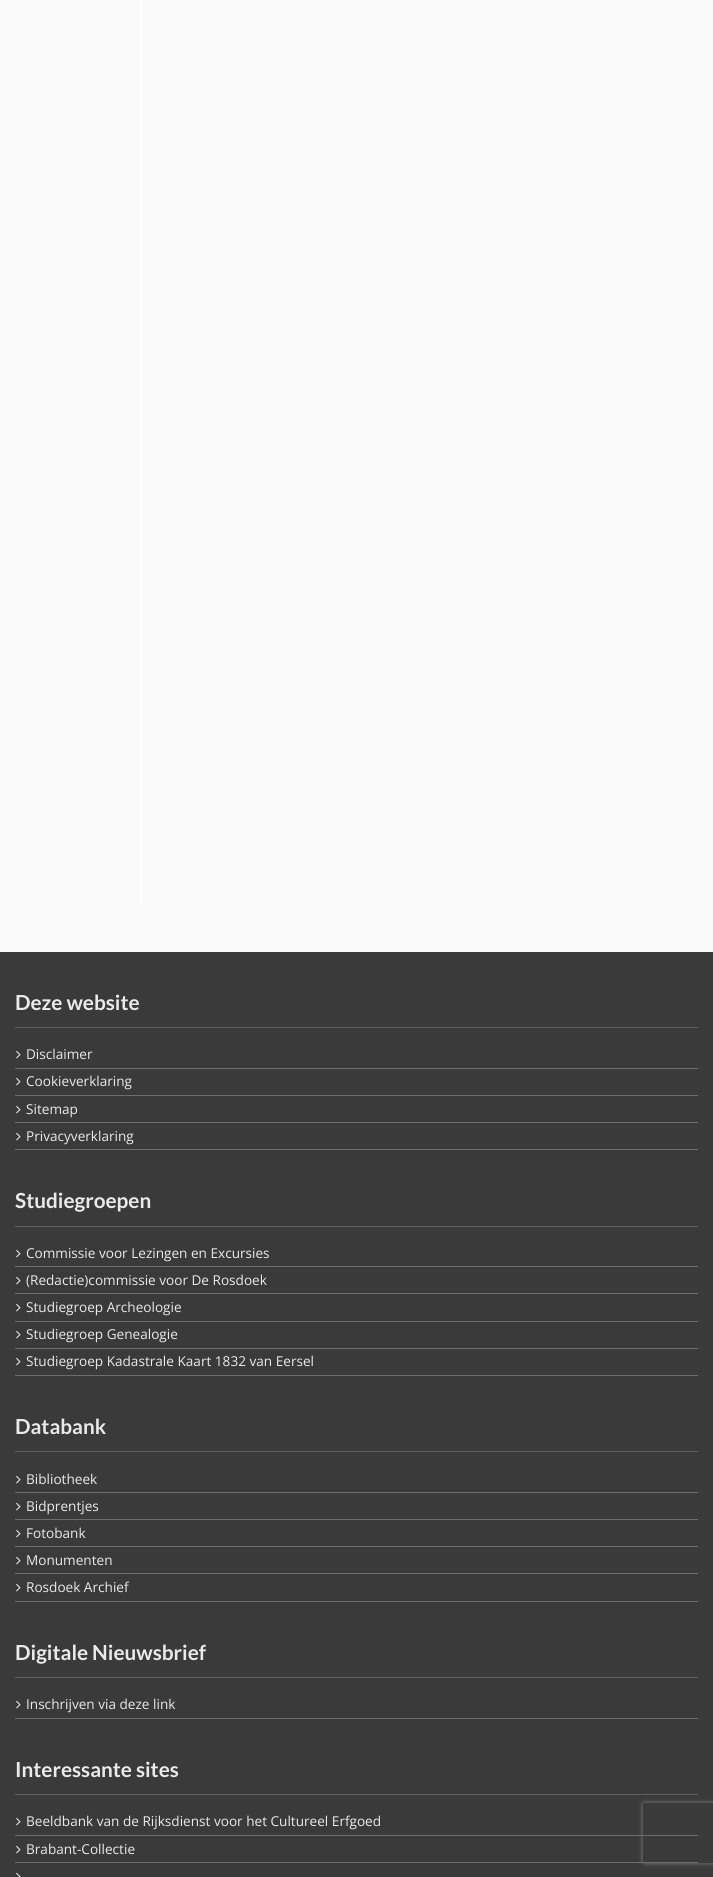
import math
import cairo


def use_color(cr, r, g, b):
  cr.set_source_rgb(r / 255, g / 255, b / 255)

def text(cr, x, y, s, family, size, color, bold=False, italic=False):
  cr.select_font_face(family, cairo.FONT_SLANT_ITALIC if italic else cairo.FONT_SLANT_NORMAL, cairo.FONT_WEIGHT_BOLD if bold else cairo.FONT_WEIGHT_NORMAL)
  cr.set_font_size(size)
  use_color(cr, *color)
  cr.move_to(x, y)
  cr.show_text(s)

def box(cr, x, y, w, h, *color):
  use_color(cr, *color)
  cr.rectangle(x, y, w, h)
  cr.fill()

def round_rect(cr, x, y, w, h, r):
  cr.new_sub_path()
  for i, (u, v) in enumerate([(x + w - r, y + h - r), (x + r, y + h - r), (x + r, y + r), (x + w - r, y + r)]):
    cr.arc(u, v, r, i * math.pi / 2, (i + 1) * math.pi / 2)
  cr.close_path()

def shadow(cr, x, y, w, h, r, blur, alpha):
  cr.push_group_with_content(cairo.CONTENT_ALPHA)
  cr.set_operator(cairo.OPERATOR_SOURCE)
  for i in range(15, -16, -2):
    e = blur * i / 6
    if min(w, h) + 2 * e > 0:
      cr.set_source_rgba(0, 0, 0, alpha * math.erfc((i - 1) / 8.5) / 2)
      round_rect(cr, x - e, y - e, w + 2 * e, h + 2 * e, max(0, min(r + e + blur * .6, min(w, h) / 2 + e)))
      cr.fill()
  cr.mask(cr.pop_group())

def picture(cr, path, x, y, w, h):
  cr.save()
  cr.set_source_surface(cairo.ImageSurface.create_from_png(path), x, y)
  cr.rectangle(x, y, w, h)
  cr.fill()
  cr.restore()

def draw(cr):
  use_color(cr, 250, 250, 250)
  cr.paint()
  box(cr, 140, 0, 2, 904, 255, 255, 255)
  box(cr, 0, 952, 713, 925, 58, 58, 58)
  box(cr, 15, 1027, 683, 1, 95, 95, 95)
  box(cr, 15, 1068, 683, 1, 109, 109, 109)
  picture(cr, "img_01.png", 16, 1050, 5, 9)
  box(cr, 15, 1095, 683, 1, 109, 109, 109)
  picture(cr, "img_01.png", 16, 1077, 5, 9)
  box(cr, 15, 1122, 683, 1, 109, 109, 109)
  picture(cr, "img_01.png", 16, 1105, 5, 9)
  box(cr, 15, 1149, 683, 1, 109, 109, 109)
  picture(cr, "img_01.png", 16, 1132, 5, 9)
  box(cr, 15, 1226, 683, 1, 95, 95, 95)
  box(cr, 15, 1266, 683, 1, 109, 109, 109)
  picture(cr, "img_01.png", 16, 1249, 5, 9)
  box(cr, 15, 1293, 683, 1, 109, 109, 109)
  picture(cr, "img_01.png", 16, 1276, 5, 9)
  box(cr, 15, 1321, 683, 1, 109, 109, 109)
  picture(cr, "img_01.png", 16, 1303, 5, 9)
  box(cr, 15, 1348, 683, 1, 109, 109, 109)
  picture(cr, "img_01.png", 16, 1330, 5, 9)
  box(cr, 15, 1375, 683, 1, 109, 109, 109)
  picture(cr, "img_01.png", 16, 1357, 5, 9)
  box(cr, 15, 1451, 683, 1, 95, 95, 95)
  box(cr, 15, 1492, 683, 1, 109, 109, 109)
  picture(cr, "img_01.png", 16, 1475, 5, 9)
  box(cr, 15, 1519, 683, 1, 109, 109, 109)
  picture(cr, "img_01.png", 16, 1502, 5, 9)
  box(cr, 15, 1546, 683, 1, 109, 109, 109)
  picture(cr, "img_01.png", 16, 1529, 5, 9)
  box(cr, 15, 1573, 683, 1, 109, 109, 109)
  picture(cr, "img_01.png", 16, 1556, 5, 9)
  box(cr, 15, 1601, 683, 1, 109, 109, 109)
  picture(cr, "img_01.png", 16, 1583, 5, 9)
  box(cr, 15, 1677, 683, 1, 95, 95, 95)
  box(cr, 15, 1718, 683, 1, 109, 109, 109)
  picture(cr, "img_01.png", 16, 1700, 5, 9)
  box(cr, 15, 1794, 683, 1, 95, 95, 95)
  box(cr, 15, 1835, 683, 1, 109, 109, 109)
  picture(cr, "img_01.png", 16, 1817, 5, 9)
  box(cr, 15, 1862, 683, 1, 109, 109, 109)
  picture(cr, "img_01.png", 16, 1845, 5, 9)
  picture(cr, "img_02.png", 16, 1872, 5, 5)
  cr.save()
  cr.set_fill_rule(cairo.FILL_RULE_EVEN_ODD)
  cr.new_path()
  cr.move_to(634, 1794)
  cr.line_to(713, 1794)
  cr.line_to(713, 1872)
  cr.line_to(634, 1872)
  cr.close_path()
  cr.move_to(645, 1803)
  cr.line_to(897, 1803)
  cr.curve_to(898, 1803, 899, 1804, 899, 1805)
  cr.line_to(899, 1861)
  cr.curve_to(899, 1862, 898, 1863, 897, 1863)
  cr.line_to(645, 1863)
  cr.curve_to(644, 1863, 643, 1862, 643, 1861)
  cr.line_to(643, 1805)
  cr.curve_to(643, 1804, 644, 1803, 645, 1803)
  cr.close_path()
  cr.clip()
  use_color(cr, 128, 128, 128)
  shadow(cr, 643, 1803, 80, 60, 2, 2.5, 1)
  cr.restore()
  text(cr, 15, 1010, "Deze website", "Lato", 20.75, (234, 234, 234), bold=True)
  text(cr, 26, 1059, "Disclaimer", "Open Sans", 13.6, (234, 234, 234))
  text(cr, 26, 1086, "Cookieverklaring", "Open Sans", 13.6, (234, 234, 234))
  text(cr, 26, 1114, "Sitemap", "Open Sans", 13.6, (234, 234, 234))
  text(cr, 26, 1141, "Privacyverklaring", "Open Sans", 13.6, (234, 234, 234))
  text(cr, 15, 1208, "Studiegroepen", "Lato", 20.75, (234, 234, 234), bold=True)
  text(cr, 26, 1258, "Commissie voor Lezingen en Excursies", "Open Sans", 13.6, (234, 234, 234))
  text(cr, 26, 1285, "(Redactie)commissie voor De Rosdoek", "Open Sans", 13.6, (234, 234, 234))
  text(cr, 26, 1312, "Studiegroep Archeologie", "Open Sans", 13.6, (234, 234, 234))
  text(cr, 26, 1339, "Studiegroep Genealogie", "Open Sans", 13.6, (234, 234, 234))
  text(cr, 26, 1366, "Studiegroep Kadastrale Kaart 1832 van Eersel", "Open Sans", 13.6, (234, 234, 234))
  text(cr, 15, 1434, "Databank", "Lato", 20.75, (234, 234, 234), bold=True)
  text(cr, 26, 1484, "Bibliotheek", "Open Sans", 13.6, (234, 234, 234))
  text(cr, 26, 1511, "Bidprentjes", "Open Sans", 13.6, (234, 234, 234))
  text(cr, 26, 1538, "Fotobank", "Open Sans", 13.6, (234, 234, 234))
  text(cr, 26, 1565, "Monumenten", "Open Sans", 13.6, (234, 234, 234))
  text(cr, 26, 1592, "Rosdoek Archief", "Open Sans", 13.6, (234, 234, 234))
  text(cr, 15, 1660, "Digitale Nieuwsbrief", "Lato", 20.75, (234, 234, 234), bold=True)
  text(cr, 26, 1709, "Inschrijven via deze link", "Open Sans", 13.6, (234, 234, 234))
  text(cr, 15, 1777, "Interessante sites", "Lato", 20.75, (234, 234, 234), bold=True)
  text(cr, 26, 1826, "Beeldbank van de Rijksdienst voor het Cultureel Erfgoed", "Open Sans", 13.6, (234, 234, 234))
  text(cr, 26, 1854, "Brabant-Collectie", "Open Sans", 13.6, (234, 234, 234))


surface = cairo.ImageSurface(cairo.FORMAT_RGB24, 713, 1877)
cr = cairo.Context(surface)
options = cairo.FontOptions()
options.set_hint_metrics(cairo.HINT_METRICS_OFF)
options.set_hint_style(cairo.HINT_STYLE_NONE)
cr.set_font_options(options)
cr.set_miter_limit(4)
draw(cr)
surface.write_to_png("out.png")
